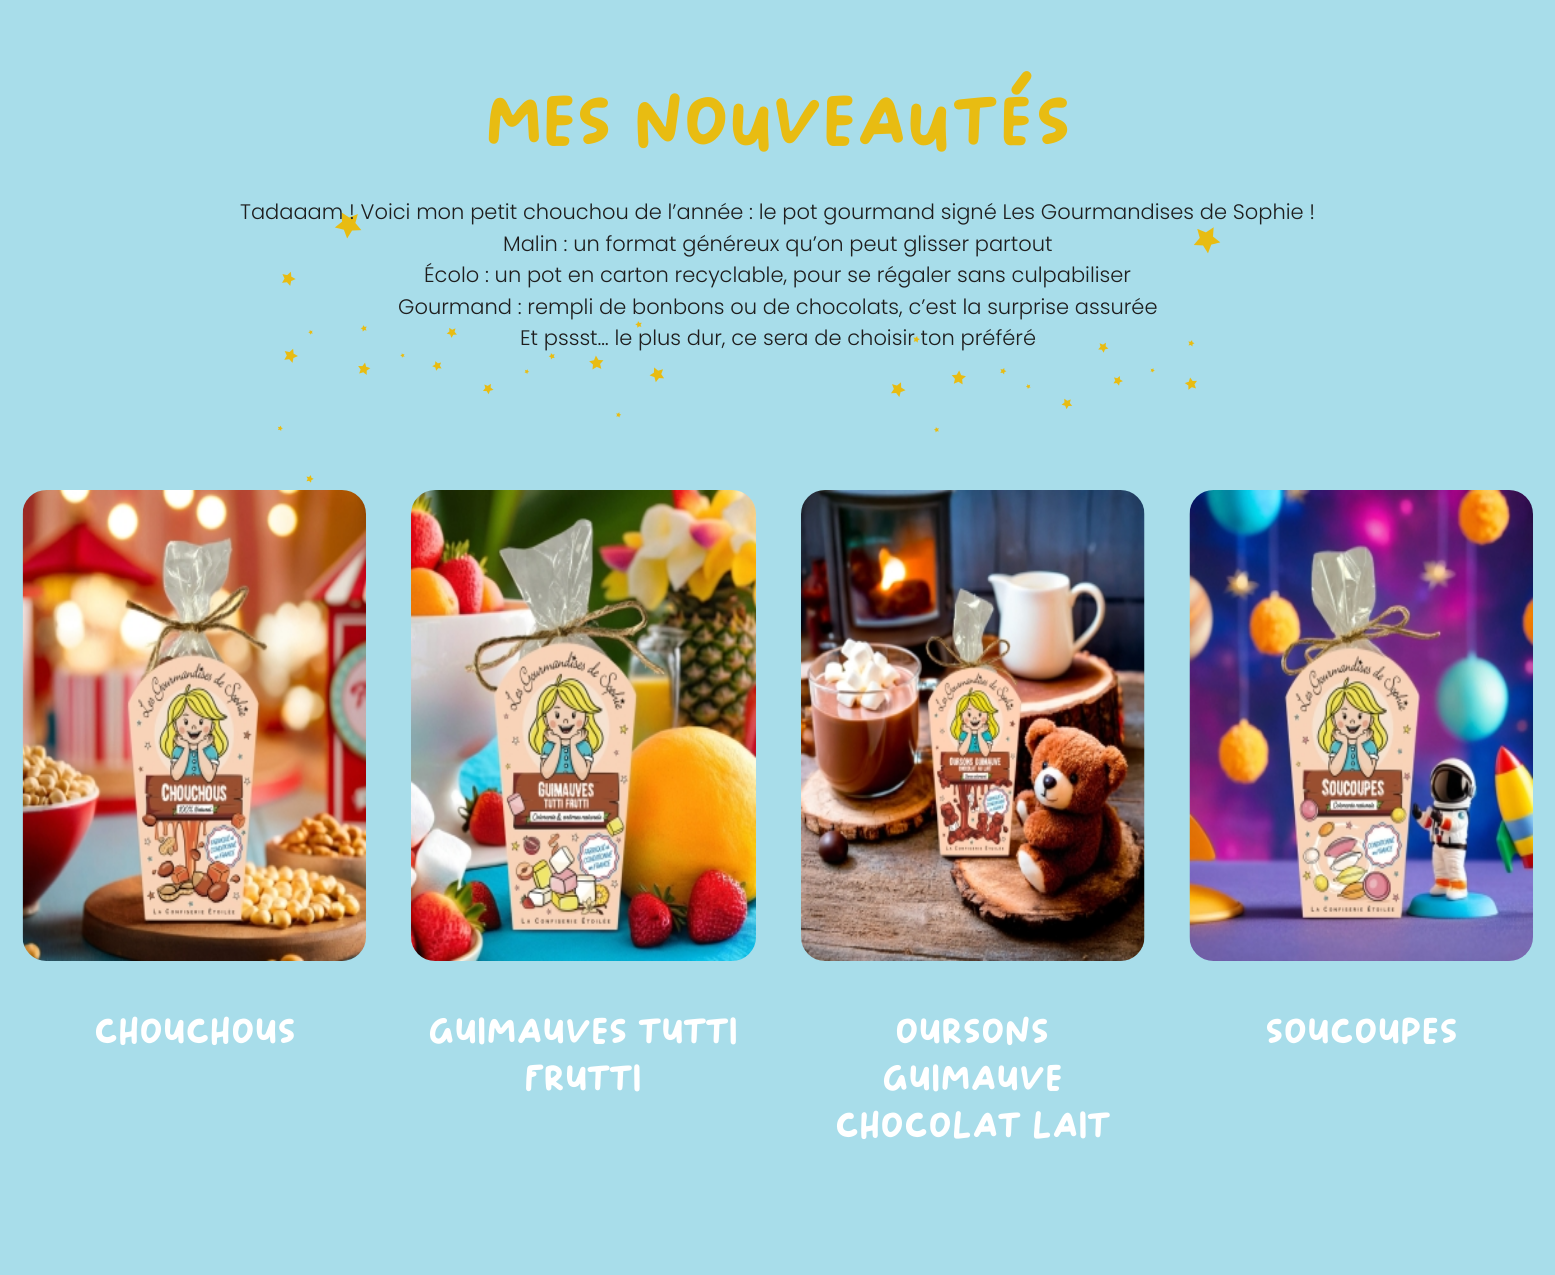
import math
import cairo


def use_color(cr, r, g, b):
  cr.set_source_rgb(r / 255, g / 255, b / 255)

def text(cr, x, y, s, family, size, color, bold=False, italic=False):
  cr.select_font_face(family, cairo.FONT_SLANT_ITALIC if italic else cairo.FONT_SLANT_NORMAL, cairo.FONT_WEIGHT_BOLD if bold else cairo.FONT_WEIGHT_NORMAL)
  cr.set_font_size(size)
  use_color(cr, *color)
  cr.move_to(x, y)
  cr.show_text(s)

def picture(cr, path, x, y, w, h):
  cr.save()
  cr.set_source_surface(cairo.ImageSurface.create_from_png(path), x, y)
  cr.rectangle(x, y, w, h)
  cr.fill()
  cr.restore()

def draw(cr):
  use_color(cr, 168, 221, 234)
  cr.paint()
  picture(cr, "img_01.png", 277, 212, 944, 271)
  picture(cr, "img_02.png", 22, 490, 344, 471)
  picture(cr, "img_03.png", 411, 490, 345, 471)
  picture(cr, "img_04.png", 801, 490, 344, 471)
  picture(cr, "img_05.png", 1189, 490, 344, 471)
  text(cr, 485, 146, "Mes nouveautés", "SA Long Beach", 75, (232, 188, 18))
  text(cr, 240, 219, "Tadaaam ! Voici mon petit chouchou de l’année : le pot gourmand signé Les Gourmandises de Sophie !", "Poppins Light", 21, (30, 30, 30))
  text(cr, 503, 251, "Malin : un format généreux qu’on peut glisser partout", "Poppins Light", 21, (30, 30, 30))
  text(cr, 424, 282, "Écolo : un pot en carton recyclable, pour se régaler sans culpabiliser", "Poppins Light", 21, (30, 30, 30))
  text(cr, 398, 314, "Gourmand : rempli de bonbons ou de chocolats, c’est la surprise assurée", "Poppins Light", 21, (30, 30, 30))
  text(cr, 520, 345, "Et pssst… le plus dur, ce sera de choisir ton préféré", "Poppins Light", 21, (30, 30, 30))
  text(cr, 94, 1044, "CHOUCHOUS", "SA Long Beach", 39, (255, 255, 255))
  text(cr, 428, 1044, "GUIMAUVES TUTTI", "SA Long Beach", 39, (255, 255, 255))
  text(cr, 526, 1091, "FRUTTI", "SA Long Beach", 39, (255, 255, 255))
  text(cr, 895, 1044, "OURSONS", "SA Long Beach", 39, (255, 255, 255))
  text(cr, 882, 1091, "GUIMAUVE", "SA Long Beach", 39, (255, 255, 255))
  text(cr, 835, 1138, "CHOCOLAT LAIT", "SA Long Beach", 39, (255, 255, 255))
  text(cr, 1265, 1044, "SOUCOUPES", "SA Long Beach", 39, (255, 255, 255))


surface = cairo.ImageSurface(cairo.FORMAT_RGB24, 1555, 1275)
cr = cairo.Context(surface)
options = cairo.FontOptions()
options.set_hint_metrics(cairo.HINT_METRICS_OFF)
options.set_hint_style(cairo.HINT_STYLE_NONE)
cr.set_font_options(options)
cr.set_miter_limit(4)
draw(cr)
surface.write_to_png("out.png")
